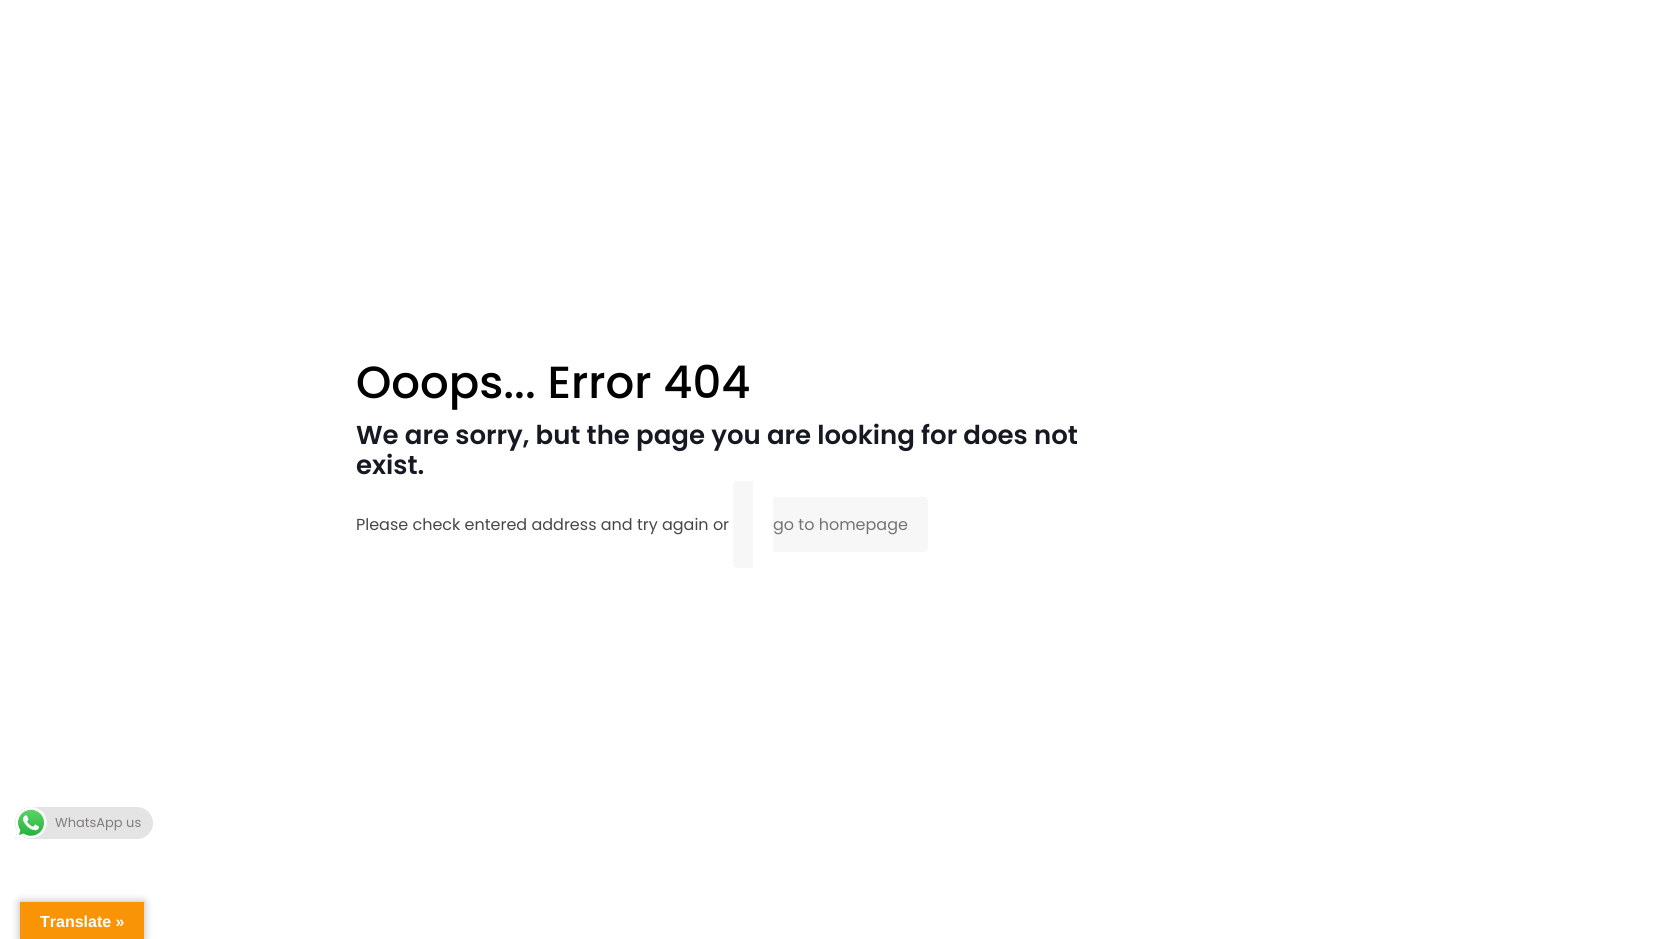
import math
import cairo


def use_color(cr, r, g, b):
  cr.set_source_rgb(r / 255, g / 255, b / 255)

def text(cr, x, y, s, family, size, color, bold=False, italic=False):
  cr.select_font_face(family, cairo.FONT_SLANT_ITALIC if italic else cairo.FONT_SLANT_NORMAL, cairo.FONT_WEIGHT_BOLD if bold else cairo.FONT_WEIGHT_NORMAL)
  cr.set_font_size(size)
  use_color(cr, *color)
  cr.move_to(x, y)
  cr.show_text(s)

def box(cr, x, y, w, h, *color):
  use_color(cr, *color)
  cr.rectangle(x, y, w, h)
  cr.fill()

def round_rect(cr, x, y, w, h, r):
  cr.new_sub_path()
  for i, (u, v) in enumerate([(x + w - r, y + h - r), (x + r, y + h - r), (x + r, y + r), (x + w - r, y + r)]):
    cr.arc(u, v, r, i * math.pi / 2, (i + 1) * math.pi / 2)
  cr.close_path()

def shadow(cr, x, y, w, h, r, blur, alpha):
  cr.push_group_with_content(cairo.CONTENT_ALPHA)
  cr.set_operator(cairo.OPERATOR_SOURCE)
  for i in range(15, -16, -2):
    e = blur * i / 6
    if min(w, h) + 2 * e > 0:
      cr.set_source_rgba(0, 0, 0, alpha * math.erfc((i - 1) / 8.5) / 2)
      round_rect(cr, x - e, y - e, w + 2 * e, h + 2 * e, max(0, min(r + e + blur * .6, min(w, h) / 2 + e)))
      cr.fill()
  cr.mask(cr.pop_group())

def picture(cr, path, x, y, w, h):
  cr.save()
  cr.set_source_surface(cairo.ImageSurface.create_from_png(path), x, y)
  cr.rectangle(x, y, w, h)
  cr.fill()
  cr.restore()

def draw(cr):
  use_color(cr, 255, 255, 255)
  cr.paint()
  use_color(cr, 247, 247, 247)
  cr.new_path()
  cr.move_to(738, 481)
  cr.line_to(753, 481)
  cr.line_to(753, 568)
  cr.line_to(738, 568)
  cr.curve_to(735, 568, 733, 566, 733, 563)
  cr.line_to(733, 486)
  cr.curve_to(733, 483, 735, 481, 738, 481)
  cr.close_path()
  cr.fill()
  cr.new_path()
  cr.move_to(773, 497)
  cr.line_to(923, 497)
  cr.curve_to(926, 497, 928, 499, 928, 502)
  cr.line_to(928, 547)
  cr.curve_to(928, 550, 926, 552, 923, 552)
  cr.line_to(773, 552)
  cr.close_path()
  cr.fill()
  use_color(cr, 228, 228, 228)
  round_rect(cr, 15, 807, 138, 32, 16)
  cr.fill()
  picture(cr, "img_01.png", 15, 807, 32, 32)
  use_color(cr, 0, 0, 0)
  shadow(cr, 20, 902, 124, 37, 0, 4.5, 0.3)
  box(cr, 20, 902, 124, 37, 248, 148, 6)
  text(cr, 356, 398, "Ooops... Error 404", "Poppins Medium", 45, (0, 0, 0))
  text(cr, 356, 444, "We are sorry, but the page you are looking for does not", "Poppins SemiBold", 26, (22, 25, 34))
  text(cr, 356, 474, "exist.", "Poppins SemiBold", 26, (22, 25, 34))
  text(cr, 356, 530, "Please check entered address and try again or", "Poppins", 16, (71, 71, 71))
  text(cr, 773, 530, "go to homepage", "Poppins", 16, (116, 116, 116))
  text(cr, 55, 827, "WhatsApp us", "Poppins", 13, (127, 125, 125))
  text(cr, 40, 927, "Translate »", "Liberation Sans", 16, (255, 255, 255), bold=True)


surface = cairo.ImageSurface(cairo.FORMAT_RGB24, 1678, 939)
cr = cairo.Context(surface)
options = cairo.FontOptions()
options.set_hint_metrics(cairo.HINT_METRICS_OFF)
options.set_hint_style(cairo.HINT_STYLE_NONE)
cr.set_font_options(options)
cr.set_miter_limit(4)
draw(cr)
surface.write_to_png("out.png")
